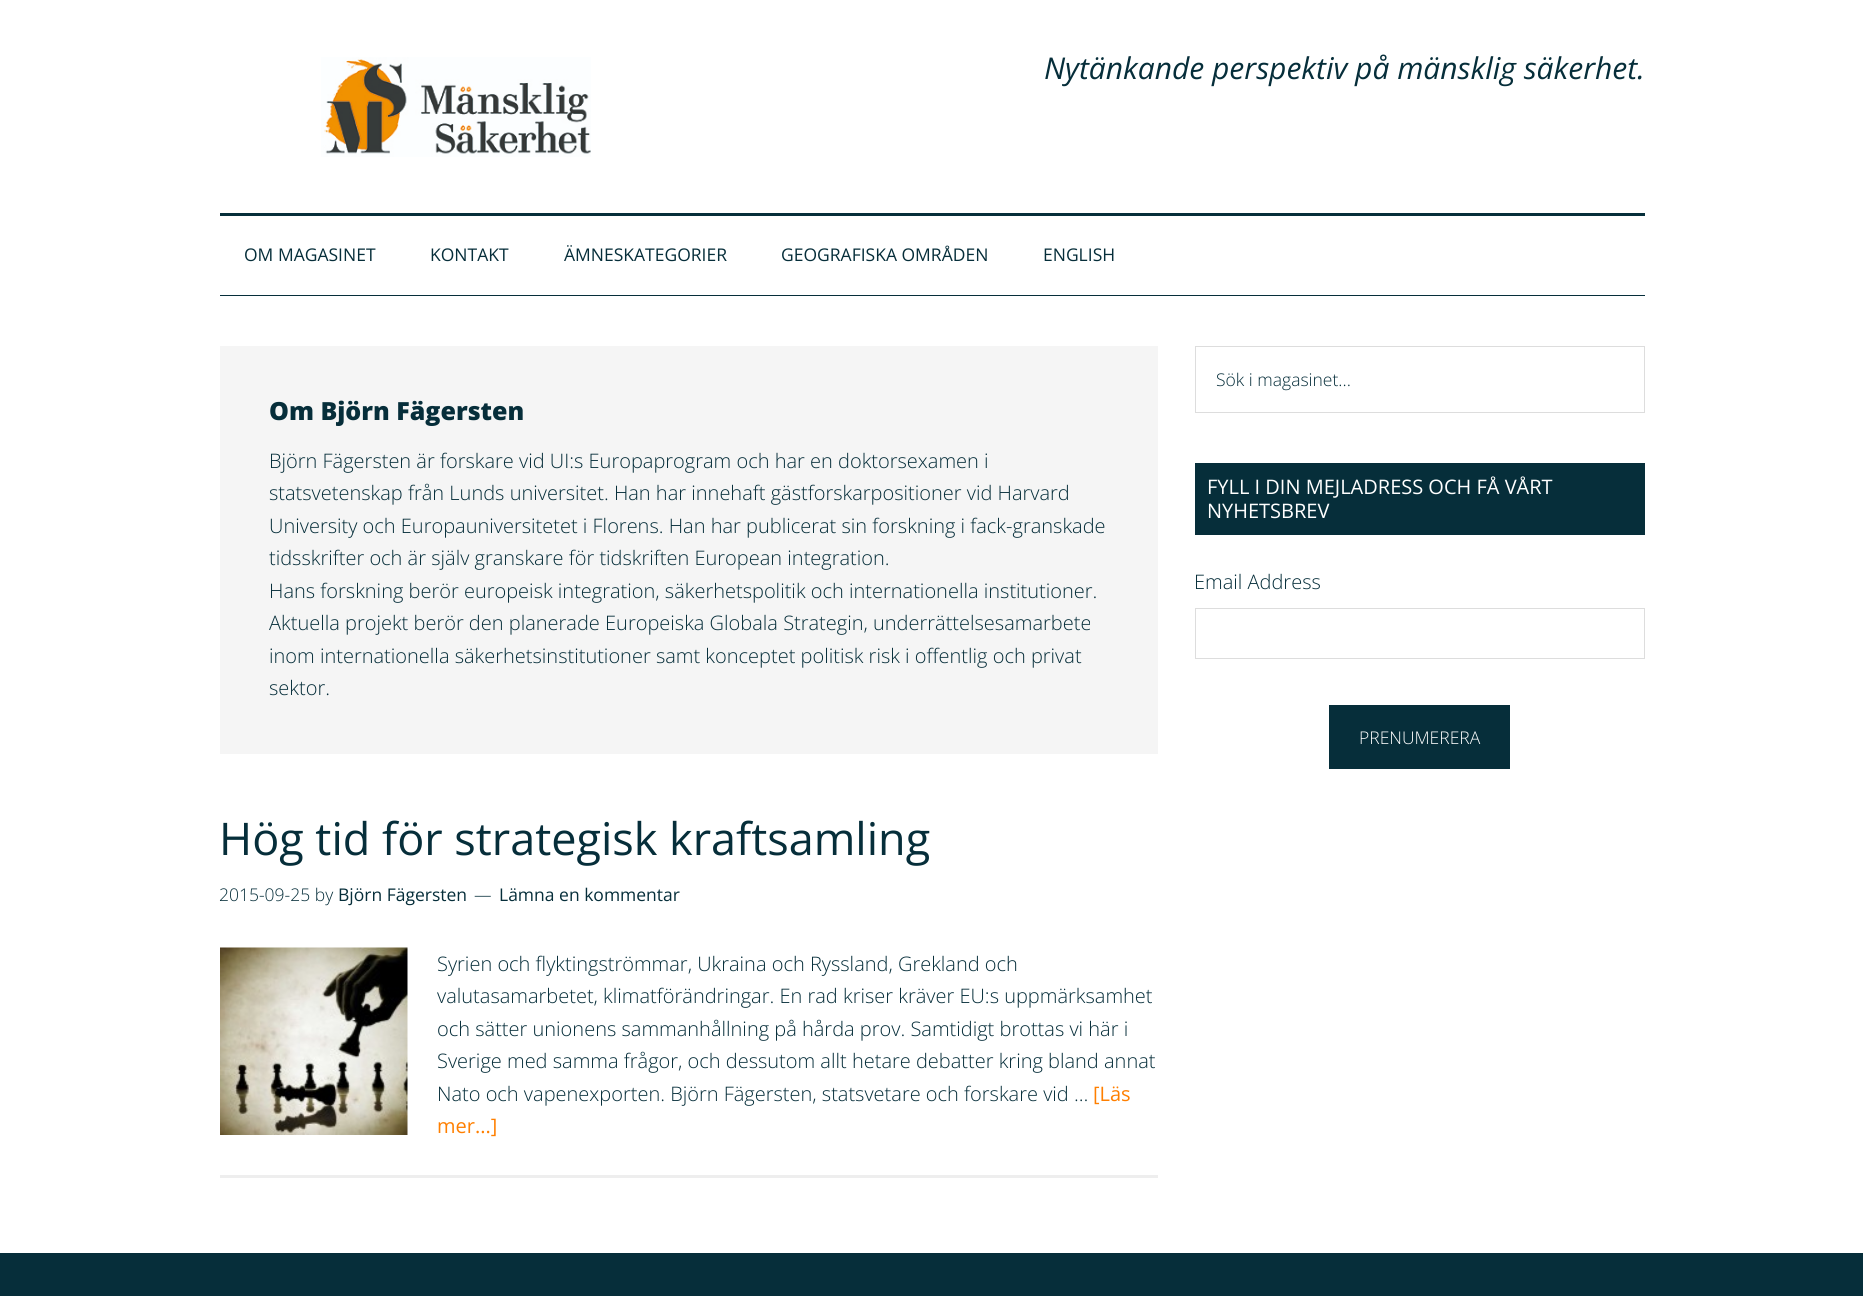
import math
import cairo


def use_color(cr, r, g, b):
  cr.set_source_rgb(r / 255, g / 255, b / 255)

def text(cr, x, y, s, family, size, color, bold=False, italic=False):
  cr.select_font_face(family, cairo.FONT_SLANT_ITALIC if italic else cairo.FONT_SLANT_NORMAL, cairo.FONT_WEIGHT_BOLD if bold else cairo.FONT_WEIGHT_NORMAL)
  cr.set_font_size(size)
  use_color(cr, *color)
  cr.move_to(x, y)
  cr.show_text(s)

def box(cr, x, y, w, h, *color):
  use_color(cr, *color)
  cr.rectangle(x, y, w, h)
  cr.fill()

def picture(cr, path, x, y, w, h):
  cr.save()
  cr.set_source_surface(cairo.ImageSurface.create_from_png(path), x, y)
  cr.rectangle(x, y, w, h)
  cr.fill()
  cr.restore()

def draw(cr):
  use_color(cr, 255, 255, 255)
  cr.paint()
  box(cr, 220, 213, 1425, 3, 6, 46, 58)
  picture(cr, "img_01.png", 321, 57, 270, 100)
  box(cr, 220, 295, 1425, 1, 6, 46, 58)
  box(cr, 220, 346, 938, 408, 245, 245, 245)
  box(cr, 220, 1175, 938, 3, 238, 238, 238)
  picture(cr, "img_02.png", 220, 947, 188, 188)
  cr.rectangle(1195.5, 346.5, 449, 66)
  use_color(cr, 221, 221, 221)
  cr.set_line_width(1)
  cr.stroke()
  box(cr, 1195, 463, 450, 72, 6, 46, 58)
  cr.rectangle(1195.5, 608.5, 449, 50)
  use_color(cr, 221, 221, 221)
  cr.stroke()
  box(cr, 1329, 705, 181, 64, 6, 46, 58)
  box(cr, 0, 1253, 1863, 43, 6, 46, 58)
  text(cr, 1044, 79, "Nytänkande perspektiv på mänsklig säkerhet.", "Open Sans", 30, (6, 46, 58), italic=True)
  text(cr, 244, 261, "OM MAGASINET", "Open Sans", 17.5, (6, 46, 58))
  text(cr, 430, 261, "KONTAKT", "Open Sans", 17.5, (6, 46, 58))
  text(cr, 564, 261, "ÄMNESKATEGORIER", "Open Sans", 17.5, (6, 46, 58))
  text(cr, 781, 261, "GEOGRAFISKA OMRÅDEN", "Open Sans", 17.5, (6, 46, 58))
  text(cr, 1043, 261, "ENGLISH", "Open Sans", 17.5, (6, 46, 58))
  text(cr, 269, 420, "Om Björn Fägersten", "Open Sans ExtraBold", 25, (6, 46, 58))
  text(cr, 269, 468, "Björn Fägersten är forskare vid UI:s Europaprogram och har en doktorsexamen i", "Open Sans Light", 20, (6, 46, 58))
  text(cr, 269, 500, "statsvetenskap från Lunds universitet. Han har innehaft gästforskarpositioner vid Harvard", "Open Sans Light", 20, (6, 46, 58))
  text(cr, 269, 533, "University och Europauniversitetet i Florens. Han har publicerat sin forskning i fack-granskade", "Open Sans Light", 20, (6, 46, 58))
  text(cr, 269, 565, "tidsskrifter och är själv granskare för tidskriften European integration.", "Open Sans Light", 20, (6, 46, 58))
  text(cr, 269, 598, "Hans forskning berör europeisk integration, säkerhetspolitik och internationella institutioner.", "Open Sans Light", 20, (6, 46, 58))
  text(cr, 269, 630, "Aktuella projekt berör den planerade Europeiska Globala Strategin, underrättelsesamarbete", "Open Sans Light", 20, (6, 46, 58))
  text(cr, 269, 663, "inom internationella säkerhetsinstitutioner samt konceptet politisk risk i offentlig och privat", "Open Sans Light", 20, (6, 46, 58))
  text(cr, 269, 695, "sektor.", "Open Sans Light", 20, (6, 46, 58))
  text(cr, 219, 855, "Hög tid för strategisk kraftsamling", "Open Sans", 45, (6, 46, 58))
  text(cr, 219, 901, "2015-09-25 by", "Open Sans Light", 17.5, (6, 46, 58))
  text(cr, 338, 901, "Björn Fägersten", "Open Sans", 17.5, (6, 46, 58))
  text(cr, 474, 901, "—", "Open Sans Light", 17.5, (6, 46, 58))
  text(cr, 499, 901, "Lämna en kommentar", "Open Sans", 17.5, (6, 46, 58))
  text(cr, 437, 971, "Syrien och flyktingströmmar, Ukraina och Ryssland, Grekland och", "Open Sans Light", 20, (6, 46, 58))
  text(cr, 437, 1003, "valutasamarbetet, klimatförändringar. En rad kriser kräver EU:s uppmärksamhet", "Open Sans Light", 20, (6, 46, 58))
  text(cr, 437, 1036, "och sätter unionens sammanhållning på hårda prov. Samtidigt brottas vi här i", "Open Sans Light", 20, (6, 46, 58))
  text(cr, 437, 1068, "Sverige med samma frågor, och dessutom allt hetare debatter kring bland annat", "Open Sans Light", 20, (6, 46, 58))
  text(cr, 437, 1101, "Nato och vapenexporten. Björn Fägersten, statsvetare och forskare vid …", "Open Sans Light", 20, (6, 46, 58))
  text(cr, 1093, 1101, "[Läs", "Open Sans", 20, (255, 127, 0))
  text(cr, 437, 1133, "mer...]", "Open Sans", 20, (255, 127, 0))
  text(cr, 1216, 386, "Sök i magasinet...", "Open Sans Light", 17.5, (6, 46, 58))
  text(cr, 1207, 494, "FYLL I DIN MEJLADRESS OCH FÅ VÅRT", "Open Sans", 20, (255, 255, 255))
  text(cr, 1207, 518, "NYHETSBREV", "Open Sans", 20, (255, 255, 255))
  text(cr, 1194, 589, "Email Address", "Open Sans Light", 20, (6, 46, 58))
  text(cr, 1359, 744, "PRENUMERERA", "Open Sans Light", 17.5, (255, 255, 255))


surface = cairo.ImageSurface(cairo.FORMAT_RGB24, 1863, 1296)
cr = cairo.Context(surface)
options = cairo.FontOptions()
options.set_hint_metrics(cairo.HINT_METRICS_OFF)
options.set_hint_style(cairo.HINT_STYLE_NONE)
cr.set_font_options(options)
cr.set_miter_limit(4)
draw(cr)
surface.write_to_png("out.png")
